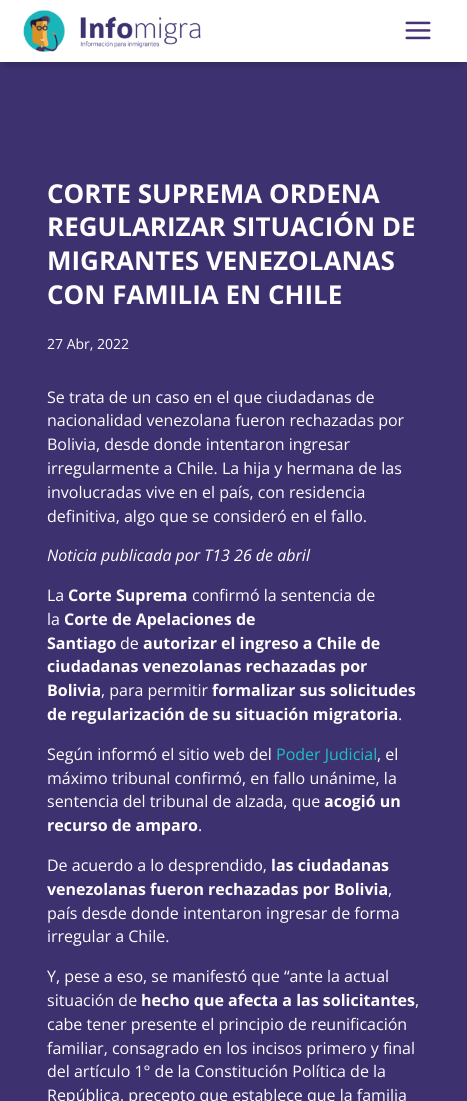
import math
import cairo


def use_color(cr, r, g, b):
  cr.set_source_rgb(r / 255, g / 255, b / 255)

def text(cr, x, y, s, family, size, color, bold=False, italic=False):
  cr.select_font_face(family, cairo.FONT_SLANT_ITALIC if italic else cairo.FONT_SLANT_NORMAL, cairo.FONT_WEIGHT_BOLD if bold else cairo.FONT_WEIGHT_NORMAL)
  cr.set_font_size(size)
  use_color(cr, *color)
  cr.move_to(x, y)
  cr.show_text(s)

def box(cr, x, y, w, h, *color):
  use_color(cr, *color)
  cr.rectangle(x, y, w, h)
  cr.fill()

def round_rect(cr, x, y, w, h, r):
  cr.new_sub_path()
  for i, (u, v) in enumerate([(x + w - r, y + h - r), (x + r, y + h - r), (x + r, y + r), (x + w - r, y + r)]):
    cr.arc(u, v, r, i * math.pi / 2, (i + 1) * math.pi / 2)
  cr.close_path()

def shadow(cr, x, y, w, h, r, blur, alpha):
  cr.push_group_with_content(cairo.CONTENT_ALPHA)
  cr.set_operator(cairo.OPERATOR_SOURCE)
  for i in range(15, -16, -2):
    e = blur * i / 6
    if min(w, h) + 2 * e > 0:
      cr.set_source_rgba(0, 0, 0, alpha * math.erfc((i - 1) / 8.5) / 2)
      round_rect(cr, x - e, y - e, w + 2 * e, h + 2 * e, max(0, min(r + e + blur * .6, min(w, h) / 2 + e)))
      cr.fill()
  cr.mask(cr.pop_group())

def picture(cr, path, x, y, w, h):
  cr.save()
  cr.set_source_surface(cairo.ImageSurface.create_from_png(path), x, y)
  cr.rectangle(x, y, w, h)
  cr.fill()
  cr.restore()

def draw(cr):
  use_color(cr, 255, 255, 255)
  cr.paint()
  box(cr, 0, 62, 467, 1039, 61, 49, 111)
  cr.save()
  cr.rectangle(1, 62, 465, 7)
  cr.clip()
  use_color(cr, 0, 0, 0)
  shadow(cr, 6, 12, 455, 50, 0, 5, 0.3)
  cr.restore()
  picture(cr, "img_01.png", 23, 10, 178, 42)
  picture(cr, "img_02.png", 405, 21, 26, 19)
  text(cr, 47, 203, "CORTE SUPREMA ORDENA", "Open Sans", 26, (255, 255, 255), bold=True)
  text(cr, 47, 236, "REGULARIZAR SITUACIÓN DE", "Open Sans", 26, (255, 255, 255), bold=True)
  text(cr, 47, 270, "MIGRANTES VENEZOLANAS", "Open Sans", 26, (255, 255, 255), bold=True)
  text(cr, 47, 304, "CON FAMILIA EN CHILE", "Open Sans", 26, (255, 255, 255), bold=True)
  text(cr, 47, 349, "27 Abr, 2022", "Open Sans", 14, (255, 255, 255))
  text(cr, 47, 403, "Se trata de un caso en el que ciudadanas de", "Open Sans", 16, (255, 255, 255))
  text(cr, 47, 426, "nacionalidad venezolana fueron rechazadas por", "Open Sans", 16, (255, 255, 255))
  text(cr, 47, 450, "Bolivia, desde donde intentaron ingresar", "Open Sans", 16, (255, 255, 255))
  text(cr, 47, 474, "irregularmente a Chile. La hija y hermana de las", "Open Sans", 16, (255, 255, 255))
  text(cr, 47, 498, "involucradas vive en el país, con residencia", "Open Sans", 16, (255, 255, 255))
  text(cr, 47, 522, "definitiva, algo que se consideró en el fallo.", "Open Sans", 16, (255, 255, 255))
  text(cr, 47, 561, "Noticia publicada por T13 26 de abril", "Open Sans", 16, (255, 255, 255), italic=True)
  text(cr, 47, 601, "La", "Open Sans", 16, (255, 255, 255))
  text(cr, 68, 601, "Corte Suprema", "Open Sans", 16, (255, 255, 255), bold=True)
  text(cr, 192, 601, "confirmó la sentencia de", "Open Sans", 16, (255, 255, 255))
  text(cr, 47, 625, "la", "Open Sans", 16, (255, 255, 255))
  text(cr, 64, 625, "Corte de Apelaciones de", "Open Sans", 16, (255, 255, 255), bold=True)
  text(cr, 47, 649, "Santiago", "Open Sans", 16, (255, 255, 255), bold=True)
  text(cr, 120, 649, "de", "Open Sans", 16, (255, 255, 255))
  text(cr, 143, 649, "autorizar el ingreso a Chile de", "Open Sans", 16, (255, 255, 255), bold=True)
  text(cr, 47, 672, "ciudadanas venezolanas rechazadas por", "Open Sans", 16, (255, 255, 255), bold=True)
  text(cr, 47, 696, "Bolivia", "Open Sans", 16, (255, 255, 255), bold=True)
  text(cr, 101, 696, ", para permitir", "Open Sans", 16, (255, 255, 255))
  text(cr, 212, 696, "formalizar sus solicitudes", "Open Sans", 16, (255, 255, 255), bold=True)
  text(cr, 47, 720, "de regularización de su situación migratoria", "Open Sans", 16, (255, 255, 255), bold=True)
  text(cr, 398, 720, ".", "Open Sans", 16, (255, 255, 255))
  text(cr, 47, 760, "Según informó el sitio web del", "Open Sans", 16, (255, 255, 255))
  text(cr, 276, 760, "Poder Judicial", "Open Sans", 16, (29, 191, 191))
  text(cr, 377, 760, ", el", "Open Sans", 16, (255, 255, 255))
  text(cr, 47, 784, "máximo tribunal confirmó, en fallo unánime, la", "Open Sans", 16, (255, 255, 255))
  text(cr, 47, 807, "sentencia del tribunal de alzada, que", "Open Sans", 16, (255, 255, 255))
  text(cr, 324, 807, "acogió un", "Open Sans", 16, (255, 255, 255), bold=True)
  text(cr, 47, 831, "recurso de amparo", "Open Sans", 16, (255, 255, 255), bold=True)
  text(cr, 198, 831, ".", "Open Sans", 16, (255, 255, 255))
  text(cr, 47, 871, "De acuerdo a lo desprendido,", "Open Sans", 16, (255, 255, 255))
  text(cr, 271, 871, "las ciudadanas", "Open Sans", 16, (255, 255, 255), bold=True)
  text(cr, 47, 895, "venezolanas fueron rechazadas por Bolivia", "Open Sans", 16, (255, 255, 255), bold=True)
  text(cr, 388, 895, ",", "Open Sans", 16, (255, 255, 255))
  text(cr, 47, 919, "país desde donde intentaron ingresar de forma", "Open Sans", 16, (255, 255, 255))
  text(cr, 47, 942, "irregular a Chile.", "Open Sans", 16, (255, 255, 255))
  text(cr, 47, 982, "Y, pese a eso, se manifestó que “ante la actual", "Open Sans", 16, (255, 255, 255))
  text(cr, 47, 1006, "situación de", "Open Sans", 16, (255, 255, 255))
  text(cr, 141, 1006, "hecho que afecta a las solicitantes", "Open Sans", 16, (255, 255, 255), bold=True)
  text(cr, 415, 1006, ",", "Open Sans", 16, (255, 255, 255))
  text(cr, 47, 1030, "cabe tener presente el principio de reunificación", "Open Sans", 16, (255, 255, 255))
  text(cr, 47, 1054, "familiar, consagrado en los incisos primero y final", "Open Sans", 16, (255, 255, 255))
  text(cr, 47, 1077, "del artículo 1° de la Constitución Política de la", "Open Sans", 16, (255, 255, 255))
  text(cr, 47, 1101, "República, precepto que establece que la familia", "Open Sans", 16, (255, 255, 255))


surface = cairo.ImageSurface(cairo.FORMAT_RGB24, 467, 1101)
cr = cairo.Context(surface)
options = cairo.FontOptions()
options.set_hint_metrics(cairo.HINT_METRICS_OFF)
options.set_hint_style(cairo.HINT_STYLE_NONE)
cr.set_font_options(options)
cr.set_miter_limit(4)
draw(cr)
surface.write_to_png("out.png")
